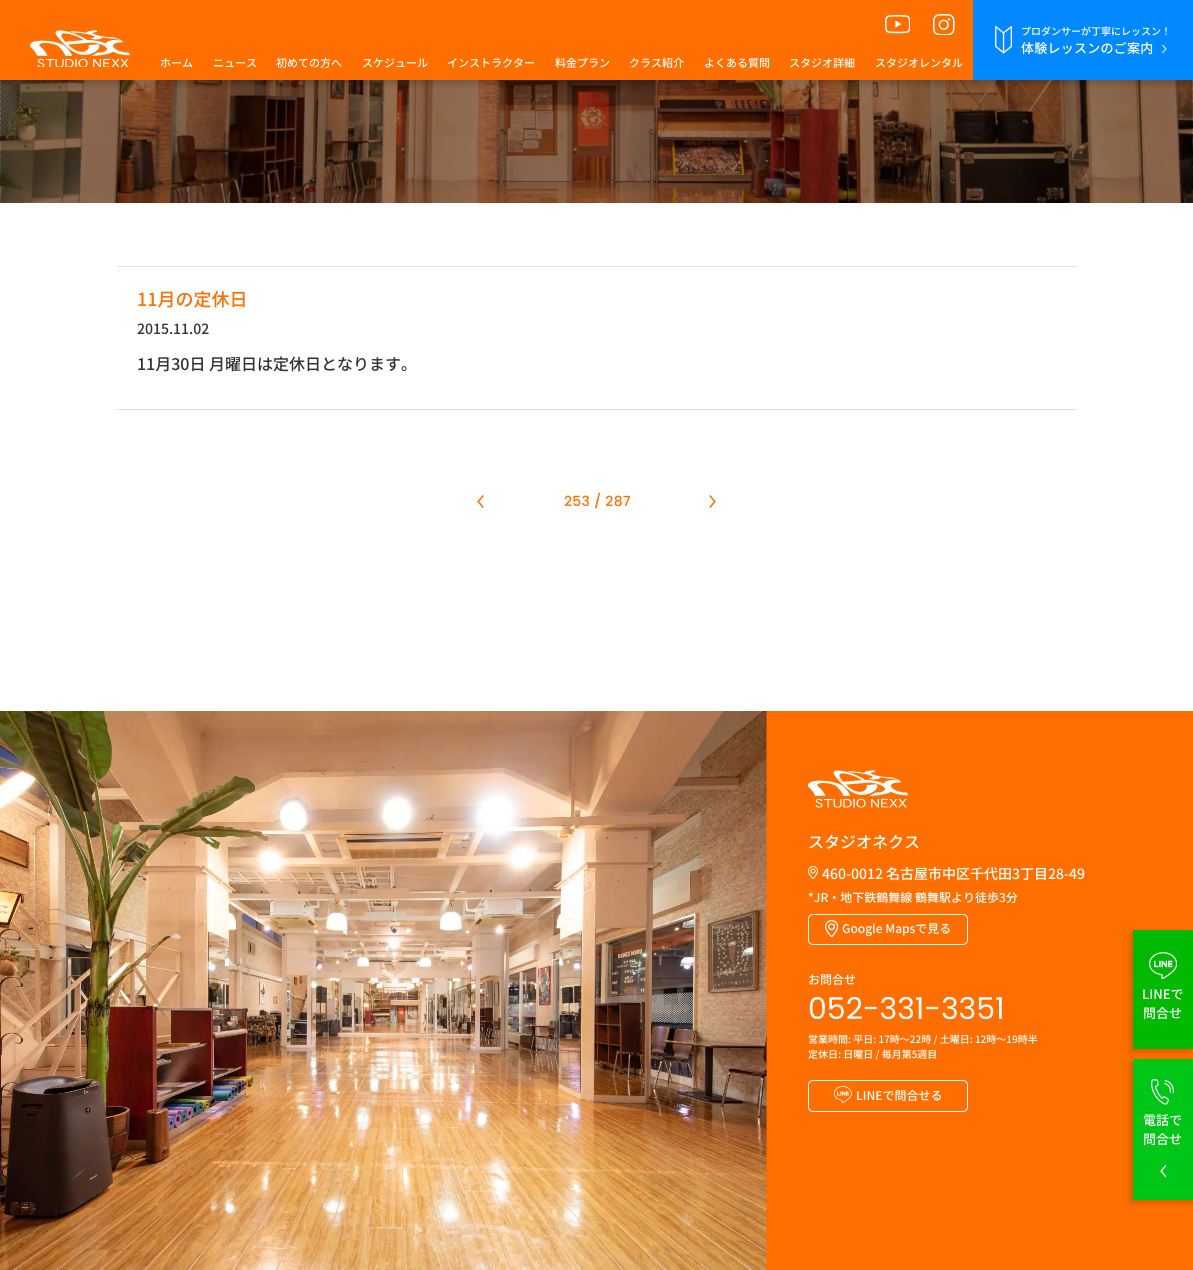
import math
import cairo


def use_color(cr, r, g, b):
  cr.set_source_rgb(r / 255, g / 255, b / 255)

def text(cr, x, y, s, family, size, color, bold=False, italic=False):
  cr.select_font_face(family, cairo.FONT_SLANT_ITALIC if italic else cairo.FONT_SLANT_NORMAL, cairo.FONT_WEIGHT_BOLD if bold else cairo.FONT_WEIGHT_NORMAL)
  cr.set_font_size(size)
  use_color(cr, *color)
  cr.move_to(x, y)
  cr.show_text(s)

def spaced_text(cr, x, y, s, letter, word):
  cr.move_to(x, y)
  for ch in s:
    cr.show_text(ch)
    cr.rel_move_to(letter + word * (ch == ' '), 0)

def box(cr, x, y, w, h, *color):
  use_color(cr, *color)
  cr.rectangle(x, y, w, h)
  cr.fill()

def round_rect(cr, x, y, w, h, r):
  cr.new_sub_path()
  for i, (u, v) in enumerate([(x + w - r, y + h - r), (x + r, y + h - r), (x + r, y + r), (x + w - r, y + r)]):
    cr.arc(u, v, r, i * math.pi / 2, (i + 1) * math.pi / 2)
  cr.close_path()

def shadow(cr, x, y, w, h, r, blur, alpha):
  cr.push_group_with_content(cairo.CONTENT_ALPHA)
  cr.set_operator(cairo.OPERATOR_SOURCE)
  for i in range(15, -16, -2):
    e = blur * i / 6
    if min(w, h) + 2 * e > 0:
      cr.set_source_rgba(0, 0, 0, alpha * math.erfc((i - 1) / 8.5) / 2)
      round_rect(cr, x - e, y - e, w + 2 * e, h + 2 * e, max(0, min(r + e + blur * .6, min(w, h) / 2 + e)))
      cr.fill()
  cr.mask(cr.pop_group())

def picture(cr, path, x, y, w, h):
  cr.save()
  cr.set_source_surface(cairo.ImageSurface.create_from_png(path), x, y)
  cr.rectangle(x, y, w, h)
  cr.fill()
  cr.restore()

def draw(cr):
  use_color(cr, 255, 255, 255)
  cr.paint()
  picture(cr, "img_06.png", 0, 80, 1193, 123)
  use_color(cr, 0, 0, 0)
  shadow(cr, 0, 5, 1193, 80, 0, 2.5, 0.16)
  box(cr, 0, 0, 973, 80, 255, 110, 0)
  box(cr, 973, 0, 220, 80, 2, 137, 255)
  picture(cr, "img_01.png", 995, 26, 17, 28)
  picture(cr, "img_02.png", 1162, 45, 5, 8)
  picture(cr, "img_03.png", 885, 15, 25, 19)
  picture(cr, "img_04.png", 933, 14, 22, 21)
  picture(cr, "img_05.png", 30, 30, 100, 37)
  box(cr, 117, 266, 960, 1, 225, 225, 225)
  box(cr, 117, 409, 960, 1, 225, 225, 225)
  picture(cr, "img_07.png", 477, 495, 7, 13)
  picture(cr, "img_08.png", 709, 495, 7, 13)
  box(cr, 0, 711, 1193, 559, 255, 110, 0)
  picture(cr, "img_09.png", 0, 711, 767, 559)
  picture(cr, "img_10.png", 808, 770, 100, 38)
  picture(cr, "img_11.png", 808, 866, 10, 13)
  round_rect(cr, 808.5, 914.5, 159, 30, 4.5)
  use_color(cr, 255, 255, 255)
  cr.set_line_width(1)
  cr.stroke()
  picture(cr, "img_12.png", 825, 920, 13, 17)
  round_rect(cr, 808.5, 1080.5, 159, 31, 4.5)
  cr.stroke()
  picture(cr, "img_13.png", 834, 1086, 18, 18)
  use_color(cr, 0, 0, 0)
  shadow(cr, 1130, 933, 60, 119, 0, 3, 0.16)
  box(cr, 1133, 930, 60, 119, 0, 185, 0)
  picture(cr, "img_14.png", 1149, 952, 28, 27)
  use_color(cr, 0, 0, 0)
  shadow(cr, 1130, 1062, 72, 141, 0, 3, 0.16)
  box(cr, 1133, 1059, 60, 141, 0, 198, 23)
  picture(cr, "img_15.png", 1151, 1079, 23, 26)
  picture(cr, "img_16.png", 1160, 1165, 6, 13)
  text(cr, 1021, 35, "プロダンサーが丁寧にレッスン！", "Noto Sans JP Medium", 10, (255, 255, 255))
  cr.set_font_size(13)
  spaced_text(cr, 1021, 53, "体験レッスンのご案内", 0.25, 0)
  text(cr, 160, 67, "ホーム", "Noto Sans JP Medium", 11, (255, 255, 255))
  text(cr, 213, 67, "ニュース", "Noto Sans JP Medium", 11, (255, 255, 255))
  text(cr, 276, 67, "初めての方へ", "Noto Sans JP Medium", 11, (255, 255, 255))
  text(cr, 362, 67, "スケジュール", "Noto Sans JP Medium", 11, (255, 255, 255))
  text(cr, 447, 67, "インストラクター", "Noto Sans JP Medium", 11, (255, 255, 255))
  text(cr, 555, 67, "料金プラン", "Noto Sans JP Medium", 11, (255, 255, 255))
  text(cr, 629, 67, "クラス紹介", "Noto Sans JP Medium", 11, (255, 255, 255))
  text(cr, 704, 67, "よくある質問", "Noto Sans JP Medium", 11, (255, 255, 255))
  text(cr, 789, 67, "スタジオ詳細", "Noto Sans JP Medium", 11, (255, 255, 255))
  text(cr, 875, 67, "スタジオレンタル", "Noto Sans JP Medium", 11, (255, 255, 255))
  text(cr, 137, 306, "11月の定休日", "Noto Sans JP Medium", 18, (255, 110, 0))
  text(cr, 137, 334, "2015.11.02", "Noto Sans JP Medium", 14, (51, 51, 51))
  text(cr, 137, 370, "11月30日 月曜日は定休日となります。", "Noto Sans JP Medium", 16, (51, 51, 51))
  cr.select_font_face("Poppins Medium")
  cr.set_font_size(14)
  use_color(cr, 255, 110, 0)
  spaced_text(cr, 564, 506, "253 / 287", 0.25, 0)
  text(cr, 808, 848, "スタジオネクス", "Noto Sans JP Medium", 16, (255, 255, 255))
  text(cr, 822, 879, "460-0012 名古屋市中区千代田3丁目28-49", "Noto Sans JP Medium", 14, (255, 255, 255))
  text(cr, 808, 902, "*JR・地下鉄鶴舞線 鶴舞駅より徒歩3分", "Noto Sans JP Medium", 12, (255, 255, 255))
  text(cr, 842, 933, "Google Mapsで見る", "Noto Sans JP Medium", 12, (255, 255, 255))
  text(cr, 808, 984, "お問合せ", "Noto Sans JP Medium", 12, (255, 255, 255))
  text(cr, 808, 1019, "052-331-3351", "Poppins", 30, (255, 255, 255))
  text(cr, 808, 1043, "営業時間: 平日: 17時～22時 / 土曜日: 12時～19時半", "Noto Sans JP Medium", 10, (255, 255, 255))
  text(cr, 808, 1058, "定休日: 日曜日 / 毎月第5週目", "Noto Sans JP Medium", 10, (255, 255, 255))
  text(cr, 856, 1100, "LINEで問合せる", "Noto Sans JP Medium", 12, (255, 255, 255))
  text(cr, 1142, 999, "LINEで", "Noto Sans JP Medium", 13, (255, 255, 255))
  text(cr, 1143, 1018, "問合せ", "Noto Sans JP Medium", 13, (255, 255, 255))
  text(cr, 1143, 1125, "電話で", "Noto Sans JP Medium", 13, (255, 255, 255))
  text(cr, 1143, 1144, "問合せ", "Noto Sans JP Medium", 13, (255, 255, 255))


surface = cairo.ImageSurface(cairo.FORMAT_RGB24, 1193, 1270)
cr = cairo.Context(surface)
options = cairo.FontOptions()
options.set_hint_metrics(cairo.HINT_METRICS_OFF)
options.set_hint_style(cairo.HINT_STYLE_NONE)
cr.set_font_options(options)
cr.set_miter_limit(4)
draw(cr)
surface.write_to_png("out.png")
